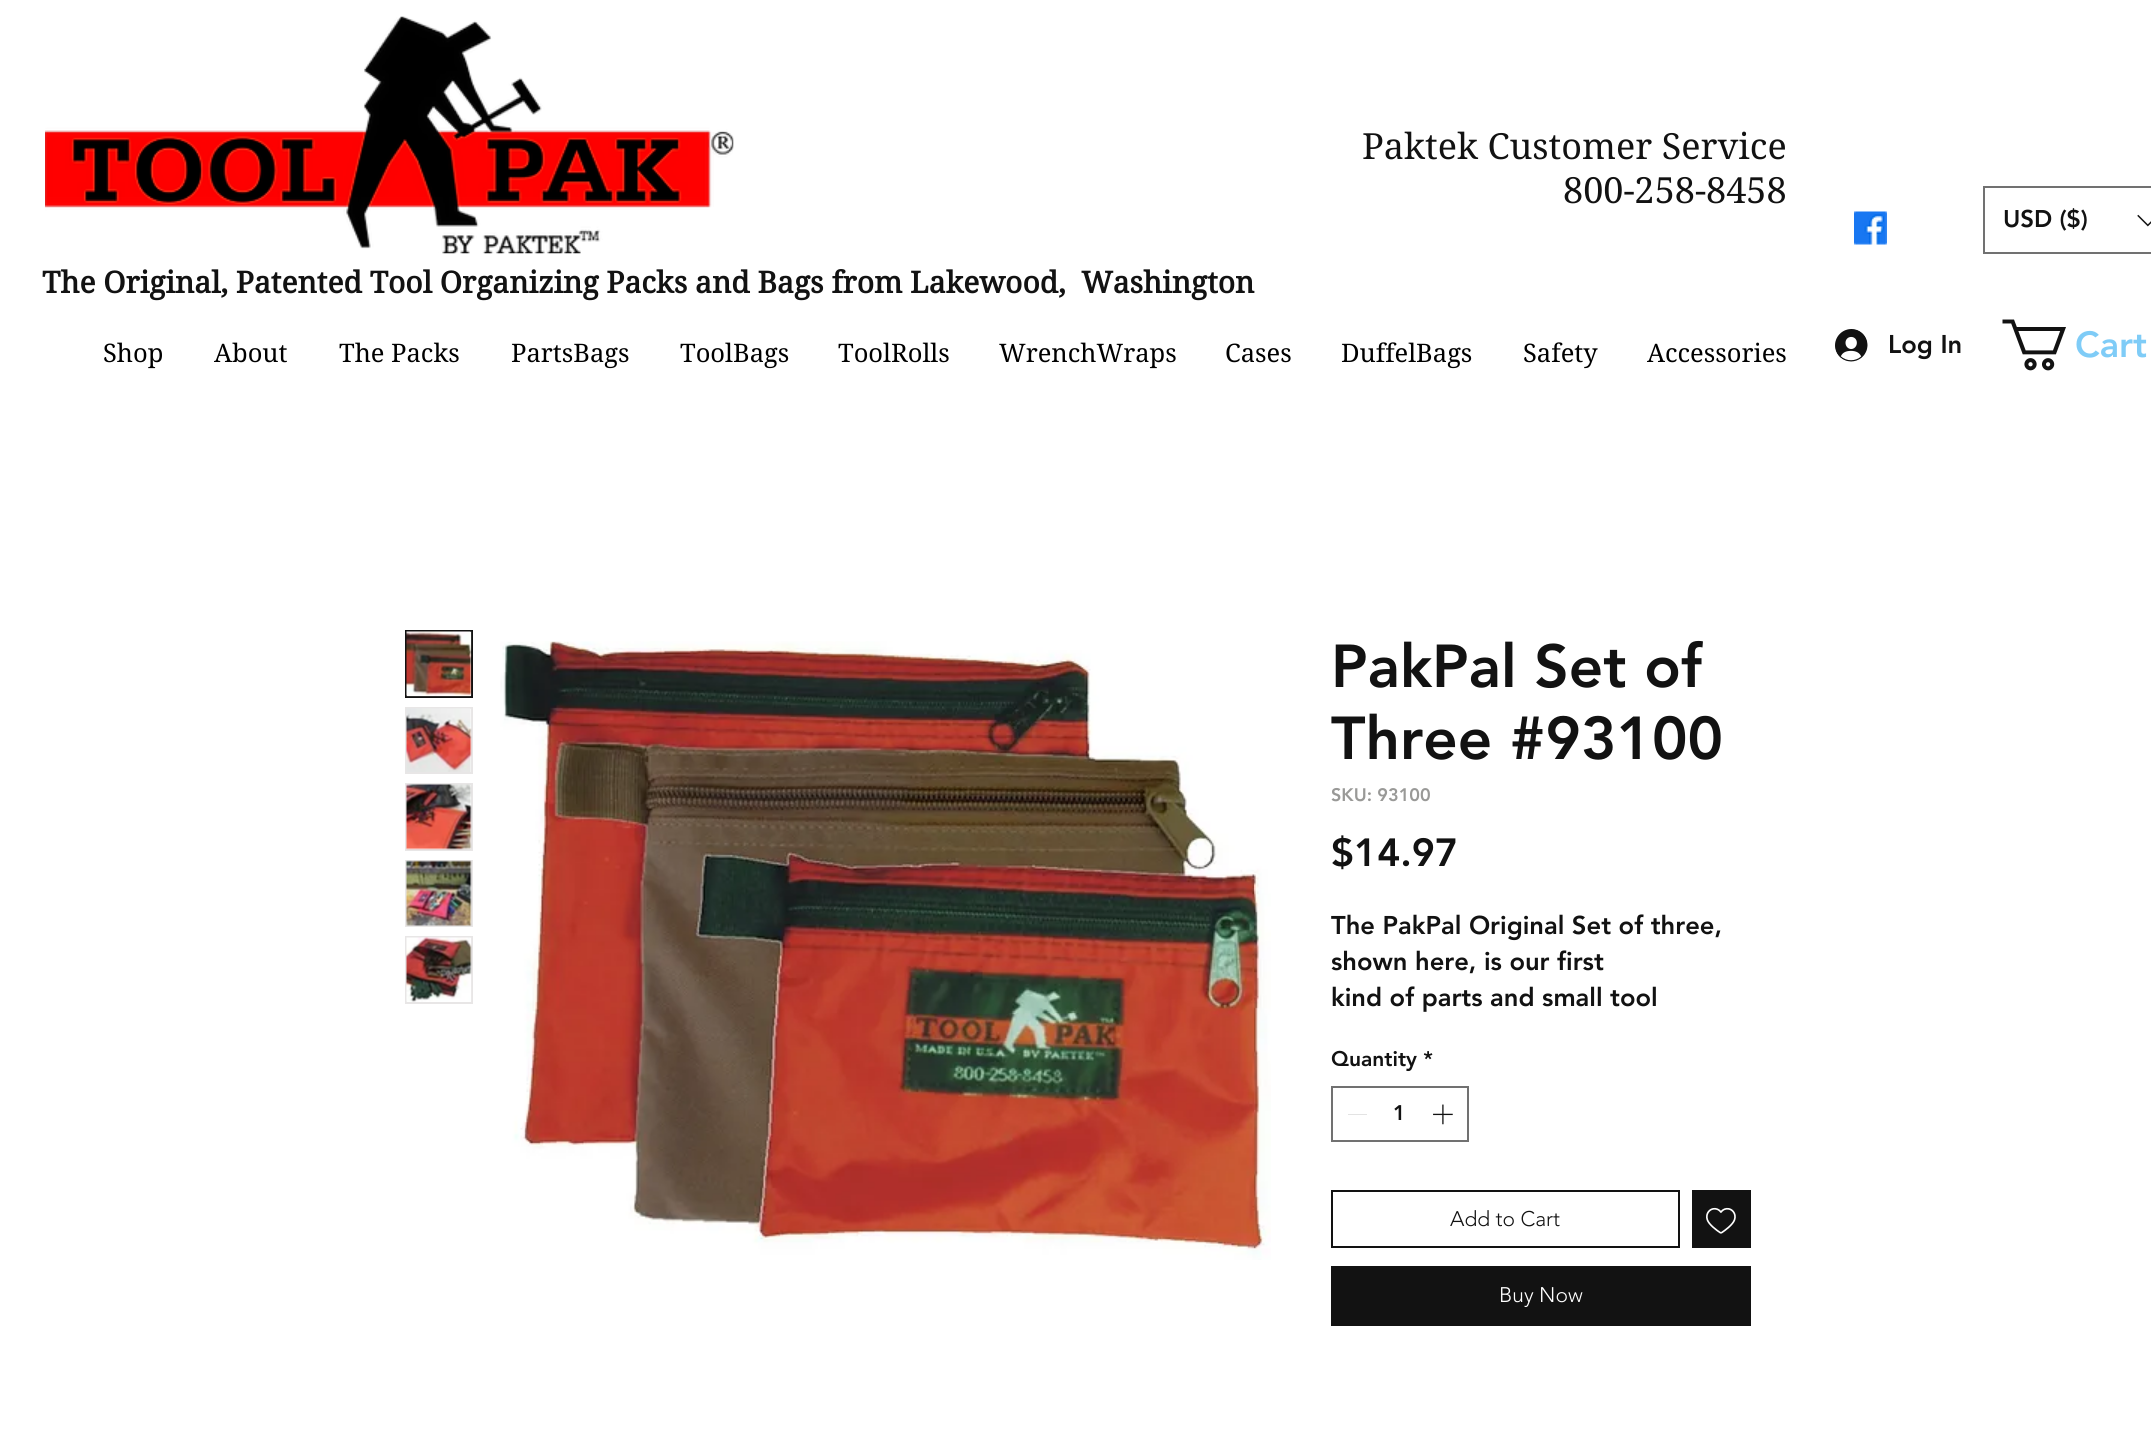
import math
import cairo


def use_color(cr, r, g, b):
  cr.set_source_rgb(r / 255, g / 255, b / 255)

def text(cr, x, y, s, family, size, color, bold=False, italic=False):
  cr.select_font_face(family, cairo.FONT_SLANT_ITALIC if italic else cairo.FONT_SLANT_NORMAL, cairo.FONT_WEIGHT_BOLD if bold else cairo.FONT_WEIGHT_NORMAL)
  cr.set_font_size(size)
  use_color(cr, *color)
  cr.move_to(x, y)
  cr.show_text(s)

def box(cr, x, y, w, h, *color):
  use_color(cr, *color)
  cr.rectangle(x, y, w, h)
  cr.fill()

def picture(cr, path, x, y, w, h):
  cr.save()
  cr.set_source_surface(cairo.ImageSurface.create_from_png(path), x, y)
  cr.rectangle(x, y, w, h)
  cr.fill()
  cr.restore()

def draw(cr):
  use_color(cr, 255, 255, 255)
  cr.paint()
  picture(cr, "img_01.png", 45, 16, 689, 238)
  picture(cr, "img_02.png", 1854, 211, 33, 34)
  cr.rectangle(1984, 187, 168, 66)
  use_color(cr, 113, 113, 113)
  cr.stroke()
  picture(cr, "img_03.png", 2137, 214, 14, 13)
  picture(cr, "img_04.png", 1835, 329, 33, 33)
  picture(cr, "img_05.png", 2002, 319, 64, 52)
  cr.rectangle(406, 631, 66, 66)
  use_color(cr, 18, 18, 18)
  cr.stroke()
  picture(cr, "img_06.png", 406, 631, 66, 66)
  cr.rectangle(406, 708, 66, 65)
  use_color(cr, 232, 230, 230)
  cr.stroke()
  picture(cr, "img_07.png", 406, 708, 66, 64)
  cr.rectangle(406, 784, 66, 66)
  cr.stroke()
  picture(cr, "img_08.png", 406, 784, 66, 66)
  cr.rectangle(406, 861, 66, 65)
  cr.stroke()
  picture(cr, "img_09.png", 406, 860, 66, 66)
  cr.rectangle(406, 937, 66, 66)
  cr.stroke()
  picture(cr, "img_10.png", 406, 937, 66, 65)
  picture(cr, "img_11.png", 500, 641, 771, 619)
  cr.rectangle(1332, 1087, 136, 54)
  use_color(cr, 113, 113, 113)
  cr.stroke()
  box(cr, 1348, 1114, 19, 1, 227, 227, 227)
  picture(cr, "img_12.png", 1433, 1104, 20, 21)
  cr.rectangle(1332, 1191, 347, 56)
  use_color(cr, 18, 18, 18)
  cr.stroke()
  box(cr, 1692, 1190, 59, 58, 18, 18, 18)
  picture(cr, "img_13.png", 1706, 1207, 30, 27)
  box(cr, 1331, 1266, 420, 60, 18, 18, 18)
  text(cr, 1362, 159, "Paktek Customer Service", "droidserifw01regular", 36, (18, 18, 18))
  text(cr, 1563, 203, "800-258-8458", "droidserifw01regular", 36, (18, 18, 18))
  text(cr, 2003, 227, "USD ($)", "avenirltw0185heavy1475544 Black", 24, (18, 18, 18))
  text(cr, 42, 293, "The Original, Patented Tool Organizing Packs and Bags from Lakewood,  Washington", "droidserifw01regular", 30, (18, 18, 18), bold=True)
  text(cr, 103, 362, "Shop", "droidserifw01regular", 25.5, (0, 0, 0))
  text(cr, 214, 362, "About", "droidserifw01regular", 25.5, (0, 0, 0))
  text(cr, 339, 362, "The Packs", "droidserifw01regular", 25.5, (0, 0, 0))
  text(cr, 511, 362, "PartsBags", "droidserifw01regular", 25.5, (0, 0, 0))
  text(cr, 680, 362, "ToolBags", "droidserifw01regular", 25.5, (0, 0, 0))
  text(cr, 838, 362, "ToolRolls", "droidserifw01regular", 25.5, (0, 0, 0))
  text(cr, 999, 362, "WrenchWraps", "droidserifw01regular", 25.5, (0, 0, 0))
  text(cr, 1225, 362, "Cases", "droidserifw01regular", 25.5, (0, 0, 0))
  text(cr, 1341, 362, "DuffelBags", "droidserifw01regular", 25.5, (0, 0, 0))
  text(cr, 1523, 362, "Safety", "droidserifw01regular", 25.5, (0, 0, 0))
  text(cr, 1647, 362, "Accessories", "droidserifw01regular", 25.5, (0, 0, 0))
  text(cr, 1888, 353, "Log In", "avenirltw0185heavy1475544 Black", 25.5, (18, 18, 18))
  text(cr, 2075, 357, "Cart", "avenirltw0185heavy1475544 Black", 36, (127, 204, 247))
  text(cr, 1331, 687, "PakPal Set of", "avenirltw0185heavy1475544 Black", 60, (18, 18, 18))
  text(cr, 1331, 759, "Three #93100", "avenirltw0185heavy1475544 Black", 60, (18, 18, 18))
  text(cr, 1331, 801, "SKU: 93100", "avenirltw0185heavy1475544 Black", 18, (153, 153, 151))
  text(cr, 1331, 866, "$14.97", "avenirltw0185heavy1475544 Black", 39, (18, 18, 18))
  cr.save()
  cr.rectangle(1331, 908, 420, 108)
  cr.clip()
  text(cr, 1331, 934, "The PakPal Original Set of three,", "avenirltw0185heavy1475544 Black", 25.5, (18, 18, 18))
  cr.restore()
  text(cr, 1331, 970, "shown here, is our first", "avenirltw0185heavy1475544 Black", 25.5, (18, 18, 18))
  text(cr, 1331, 1006, "kind of parts and small tool", "avenirltw0185heavy1475544 Black", 25.5, (18, 18, 18))
  text(cr, 1331, 1066, "Quantity *", "avenirltw0185heavy1475544 Black", 21, (18, 18, 18))
  text(cr, 1393, 1120, "1", "avenirltw0185heavy1475544 Black", 21, (18, 18, 18))
  text(cr, 1450, 1226, "Add to Cart", "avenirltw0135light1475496 Light", 21, (18, 18, 18))
  text(cr, 1499, 1302, "Buy Now", "avenirltw0135light1475496 Light", 21, (255, 255, 255))


surface = cairo.ImageSurface(cairo.FORMAT_RGB24, 2151, 1451)
cr = cairo.Context(surface)
options = cairo.FontOptions()
options.set_hint_metrics(cairo.HINT_METRICS_OFF)
options.set_hint_style(cairo.HINT_STYLE_NONE)
cr.set_font_options(options)
cr.set_miter_limit(4)
draw(cr)
surface.write_to_png("out.png")
